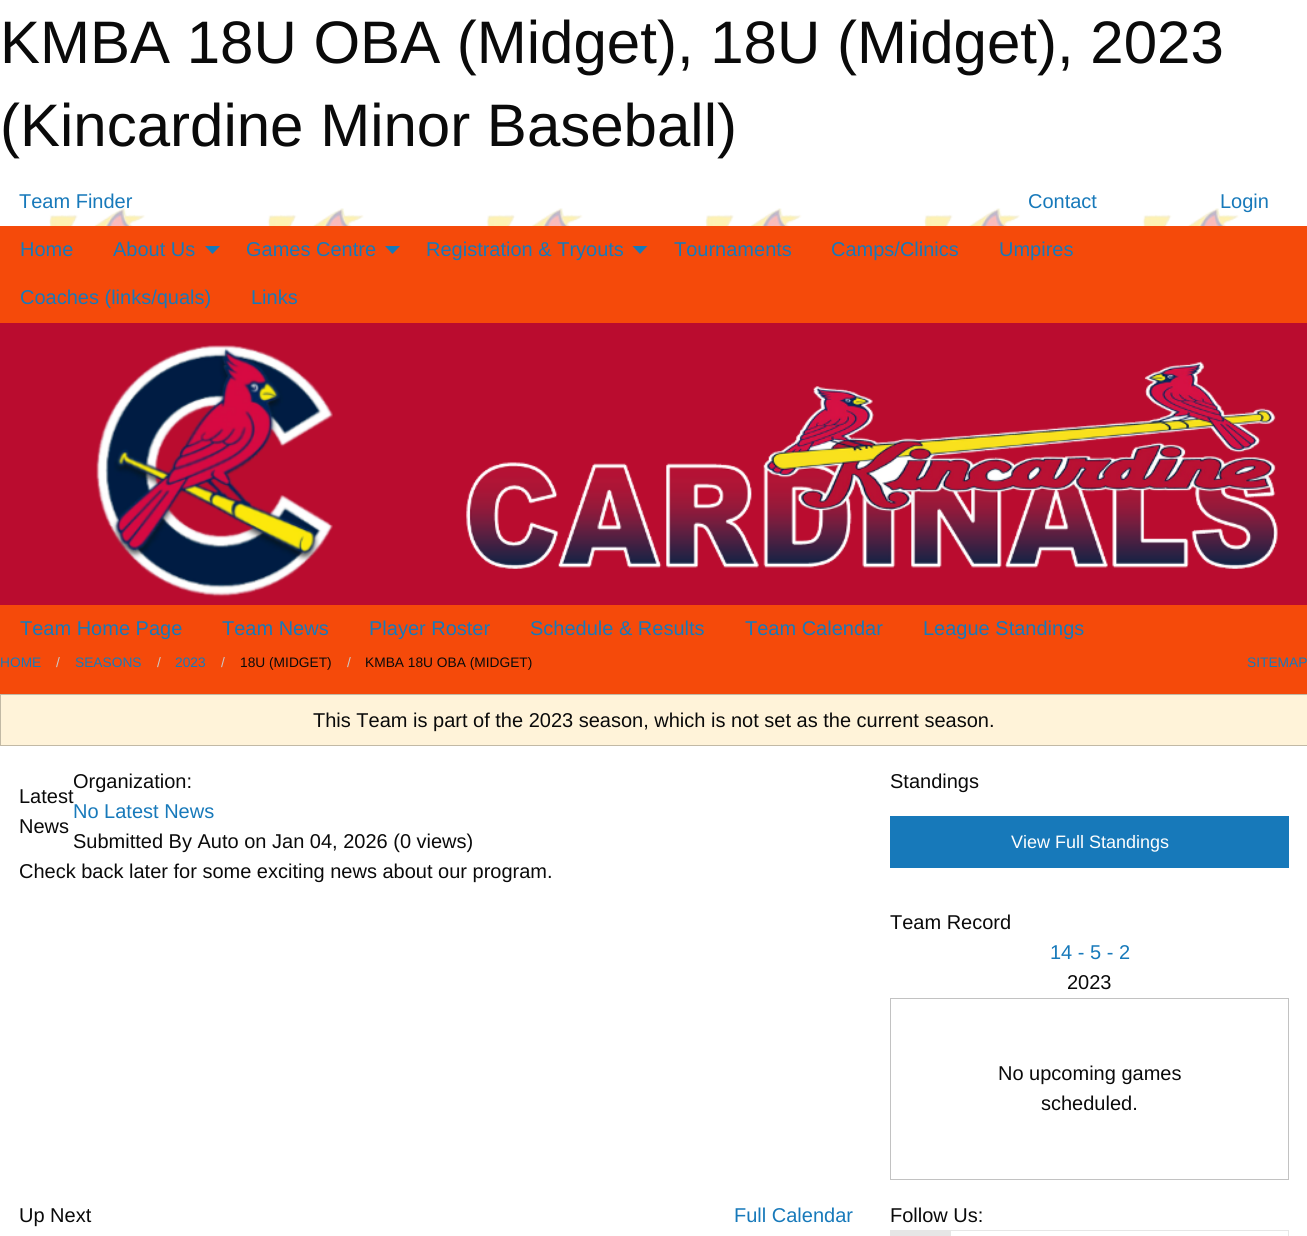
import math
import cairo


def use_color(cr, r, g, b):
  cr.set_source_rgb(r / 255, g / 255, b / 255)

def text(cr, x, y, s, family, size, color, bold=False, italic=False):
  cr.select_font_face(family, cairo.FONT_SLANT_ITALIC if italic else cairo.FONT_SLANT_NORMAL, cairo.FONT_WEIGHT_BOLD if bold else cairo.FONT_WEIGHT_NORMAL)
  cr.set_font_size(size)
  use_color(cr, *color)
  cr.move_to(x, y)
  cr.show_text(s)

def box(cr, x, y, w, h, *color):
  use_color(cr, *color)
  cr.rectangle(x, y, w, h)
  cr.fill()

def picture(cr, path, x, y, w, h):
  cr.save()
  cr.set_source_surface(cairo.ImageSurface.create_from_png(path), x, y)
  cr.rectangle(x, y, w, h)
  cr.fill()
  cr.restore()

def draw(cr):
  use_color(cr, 255, 255, 255)
  cr.paint()
  picture(cr, "img_01.png", 49, 208, 1190, 18)
  box(cr, 0, 226, 1307, 468, 245, 74, 10)
  use_color(cr, 23, 121, 186)
  cr.new_path()
  cr.move_to(205, 246)
  cr.line_to(220, 246)
  cr.line_to(212.5, 254)
  cr.close_path()
  cr.fill()
  cr.new_path()
  cr.move_to(385, 246)
  cr.line_to(400, 246)
  cr.line_to(392.5, 254)
  cr.close_path()
  cr.fill()
  cr.new_path()
  cr.move_to(632.5, 246)
  cr.line_to(647.5, 246)
  cr.line_to(640, 254)
  cr.close_path()
  cr.fill()
  box(cr, 0, 323, 1307, 282, 186, 12, 47)
  picture(cr, "img_02.png", 96, 345, 237, 252)
  picture(cr, "img_03.png", 466, 361, 812, 208)
  use_color(cr, 255, 243, 217)
  cr.rectangle(0.5, 694.5, 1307, 51)
  cr.fill_preserve()
  use_color(cr, 194, 185, 165)
  cr.set_line_width(1)
  cr.stroke()
  box(cr, 890, 816, 399, 52, 23, 121, 186)
  cr.rectangle(890.5, 998.5, 398, 181)
  use_color(cr, 194, 194, 194)
  cr.stroke()
  cr.rectangle(890.5, 1230.5, 398, 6)
  use_color(cr, 230, 230, 230)
  cr.stroke()
  box(cr, 891, 1231, 60, 5, 230, 230, 230)
  text(cr, 0, 63, "KMBA 18U OBA (Midget), 18U (Midget), 2023", "Liberation Sans", 60, (10, 10, 10))
  text(cr, 0, 146, "(Kincardine Minor Baseball)", "Liberation Sans", 60, (10, 10, 10))
  text(cr, 19, 208, "Team Finder", "Liberation Sans", 20, (23, 121, 186))
  text(cr, 1028, 208, "Contact", "Liberation Sans", 20, (23, 121, 186))
  text(cr, 1220, 208, "Login", "Liberation Sans", 20, (23, 121, 186))
  text(cr, 20, 256, "Home", "Liberation Sans", 20, (23, 121, 186))
  text(cr, 113, 256, "About Us", "Liberation Sans", 20, (23, 121, 186))
  text(cr, 246, 256, "Games Centre", "Liberation Sans", 20, (23, 121, 186))
  text(cr, 426, 256, "Registration & Tryouts", "Liberation Sans", 20, (23, 121, 186))
  text(cr, 674, 256, "Tournaments", "Liberation Sans", 20, (23, 121, 186))
  text(cr, 831, 256, "Camps/Clinics", "Liberation Sans", 20, (23, 121, 186))
  text(cr, 999, 256, "Umpires", "Liberation Sans", 20, (23, 121, 186))
  text(cr, 20, 304, "Coaches (links/quals)", "Liberation Sans", 20, (23, 121, 186))
  text(cr, 251, 304, "Links", "Liberation Sans", 20, (23, 121, 186))
  text(cr, 20, 635, "Team Home Page", "Liberation Sans", 20, (23, 121, 186))
  text(cr, 222, 635, "Team News", "Liberation Sans", 20, (23, 121, 186))
  text(cr, 369, 635, "Player Roster", "Liberation Sans", 20, (23, 121, 186))
  text(cr, 530, 635, "Schedule & Results", "Liberation Sans", 20, (23, 121, 186))
  text(cr, 745, 635, "Team Calendar", "Liberation Sans", 20, (23, 121, 186))
  text(cr, 923, 635, "League Standings", "Liberation Sans", 20, (23, 121, 186))
  text(cr, 0, 667, "HOME", "Liberation Sans", 13.75, (23, 121, 186))
  text(cr, 56, 667, "/", "Liberation Sans", 13.75, (202, 202, 202))
  text(cr, 75, 667, "SEASONS", "Liberation Sans", 13.75, (23, 121, 186))
  text(cr, 157, 667, "/", "Liberation Sans", 13.75, (202, 202, 202))
  text(cr, 175, 667, "2023", "Liberation Sans", 13.75, (23, 121, 186))
  text(cr, 221, 667, "/", "Liberation Sans", 13.75, (202, 202, 202))
  text(cr, 240, 667, "18U (MIDGET)", "Liberation Sans", 13.75, (10, 10, 10))
  text(cr, 347, 667, "/", "Liberation Sans", 13.75, (202, 202, 202))
  text(cr, 365, 667, "KMBA 18U OBA (MIDGET)", "Liberation Sans", 13.75, (10, 10, 10))
  text(cr, 1247, 667, "SITEMAP", "Liberation Sans", 13.75, (23, 121, 186))
  text(cr, 313, 727, "This Team is part of the 2023 season, which is not set as the current season.", "Liberation Sans", 20, (10, 10, 10))
  text(cr, 19, 803, "Latest", "Liberation Sans", 20, (10, 10, 10))
  text(cr, 19, 833, "News", "Liberation Sans", 20, (10, 10, 10))
  text(cr, 73, 788, "Organization:", "Liberation Sans", 20, (10, 10, 10))
  text(cr, 73, 818, "No Latest News", "Liberation Sans", 20, (23, 121, 186))
  text(cr, 73, 848, "Submitted By Auto on Jan 04, 2026 (0 views)", "Liberation Sans", 20, (10, 10, 10))
  text(cr, 19, 878, "Check back later for some exciting news about our program.", "Liberation Sans", 20, (10, 10, 10))
  text(cr, 890, 788, "Standings", "Liberation Sans", 20, (10, 10, 10))
  text(cr, 1011, 848, "View Full Standings", "Liberation Sans", 18, (254, 254, 254))
  text(cr, 890, 929, "Team Record", "Liberation Sans", 20, (10, 10, 10))
  text(cr, 1050, 959, "14 - 5 - 2", "Liberation Sans", 20, (23, 121, 186))
  text(cr, 1067, 989, "2023", "Liberation Sans", 20, (10, 10, 10))
  text(cr, 998, 1080, "No upcoming games", "Liberation Sans", 20, (10, 10, 10))
  text(cr, 1041, 1110, "scheduled.", "Liberation Sans", 20, (10, 10, 10))
  text(cr, 19, 1222, "Up Next", "Liberation Sans", 20, (10, 10, 10))
  text(cr, 734, 1222, "Full Calendar", "Liberation Sans", 20, (23, 121, 186))
  text(cr, 890, 1222, "Follow Us:", "Liberation Sans", 20, (10, 10, 10))


surface = cairo.ImageSurface(cairo.FORMAT_RGB24, 1307, 1236)
cr = cairo.Context(surface)
options = cairo.FontOptions()
options.set_hint_metrics(cairo.HINT_METRICS_OFF)
options.set_hint_style(cairo.HINT_STYLE_NONE)
cr.set_font_options(options)
cr.set_miter_limit(4)
draw(cr)
surface.write_to_png("out.png")
